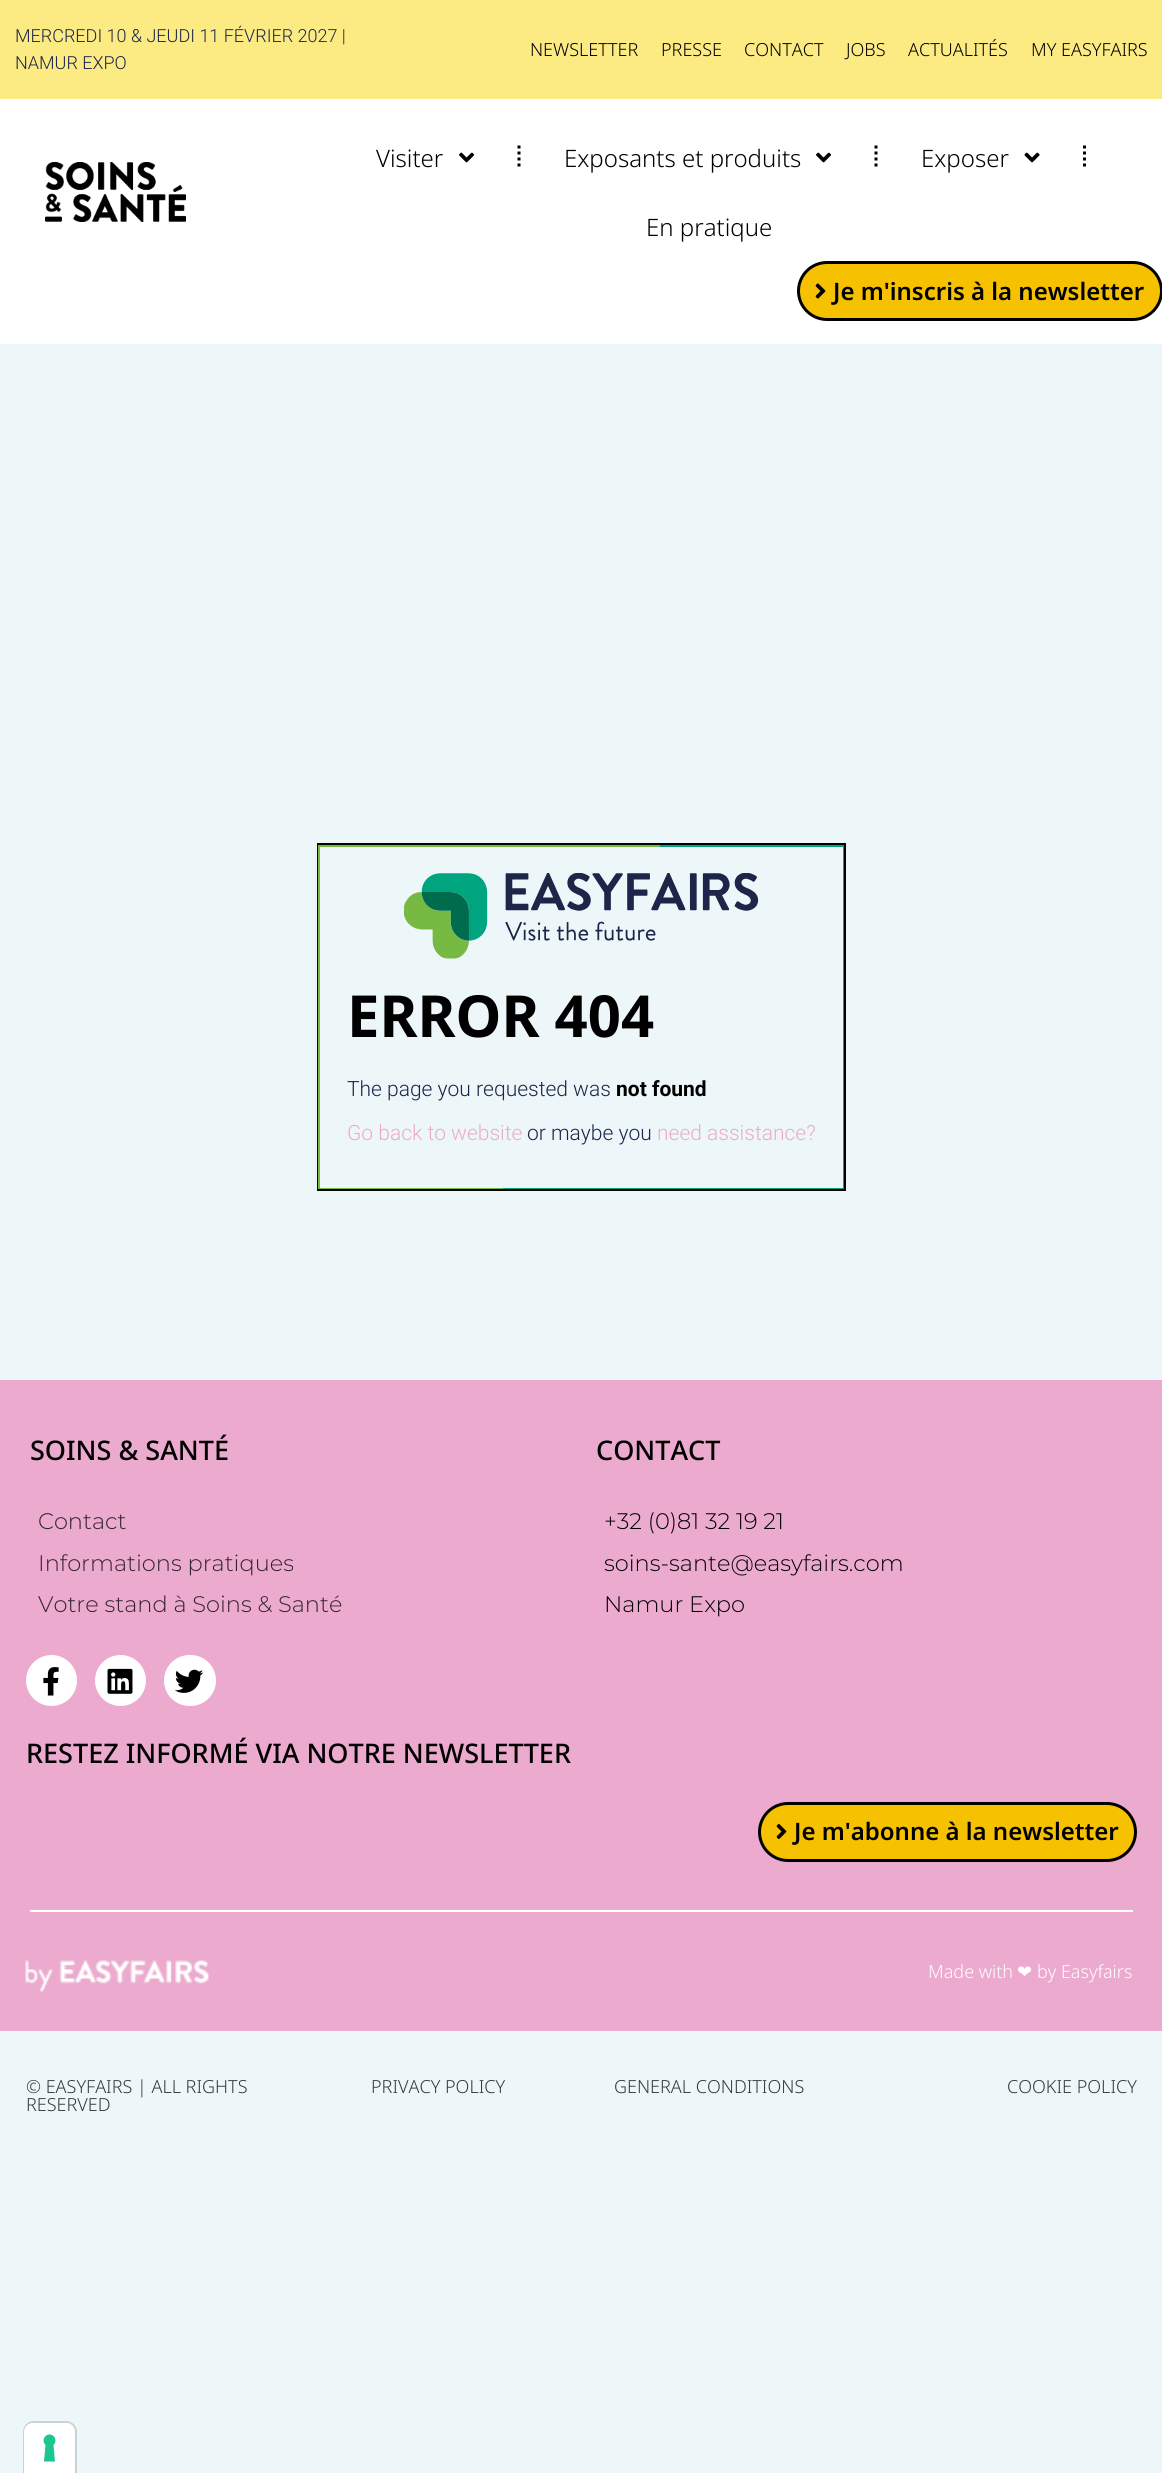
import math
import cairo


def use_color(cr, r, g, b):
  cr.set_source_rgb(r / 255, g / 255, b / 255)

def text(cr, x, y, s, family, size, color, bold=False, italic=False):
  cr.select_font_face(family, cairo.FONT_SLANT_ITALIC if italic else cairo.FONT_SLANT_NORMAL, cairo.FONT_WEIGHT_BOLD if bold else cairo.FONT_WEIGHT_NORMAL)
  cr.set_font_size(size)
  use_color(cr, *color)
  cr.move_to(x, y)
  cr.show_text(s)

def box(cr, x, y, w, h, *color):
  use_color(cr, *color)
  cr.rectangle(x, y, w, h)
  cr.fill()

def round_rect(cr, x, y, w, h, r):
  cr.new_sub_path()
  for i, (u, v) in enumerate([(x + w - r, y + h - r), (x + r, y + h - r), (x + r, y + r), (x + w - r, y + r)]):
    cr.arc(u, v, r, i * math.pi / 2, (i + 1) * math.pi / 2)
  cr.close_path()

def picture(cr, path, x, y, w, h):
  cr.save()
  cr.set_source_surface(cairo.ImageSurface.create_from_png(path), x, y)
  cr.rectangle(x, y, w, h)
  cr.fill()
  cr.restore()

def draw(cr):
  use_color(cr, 237, 246, 249)
  cr.paint()
  box(cr, 0, 0, 1162, 99, 252, 235, 131)
  box(cr, 0, 99, 1162, 245, 255, 255, 255)
  picture(cr, "img_01.png", 45, 162, 141, 60)
  picture(cr, "img_02.png", 459, 152, 15, 11)
  cr.new_path()
  cr.move_to(519, 145.5)
  cr.line_to(519, 169.5)
  use_color(cr, 0, 0, 0)
  cr.set_line_width(3)
  cr.set_dash([3, 3])
  cr.stroke()
  picture(cr, "img_02.png", 816, 152, 15, 11)
  cr.new_path()
  cr.move_to(876, 145.5)
  cr.line_to(876, 169.5)
  cr.stroke()
  picture(cr, "img_03.png", 1024, 152, 16, 11)
  cr.new_path()
  cr.move_to(1084.5, 145.5)
  cr.line_to(1084.5, 169.5)
  cr.stroke()
  use_color(cr, 245, 193, 0)
  round_rect(cr, 798.5, 262.5, 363, 57, 28.5)
  cr.fill_preserve()
  use_color(cr, 0, 0, 0)
  cr.set_dash([])
  cr.stroke()
  picture(cr, "img_04.png", 815, 283, 11, 16)
  picture(cr, "img_05.png", 404, 873, 355, 86)
  cr.rectangle(318, 844, 527, 346)
  cr.set_line_width(2)
  cr.stroke()
  use_color(cr, 118, 186, 67)
  cr.new_path()
  cr.move_to(320, 847)
  cr.line_to(659, 847)
  cr.line_to(660, 845)
  cr.line_to(318, 845)
  cr.line_to(318, 1189)
  cr.line_to(502, 1189)
  cr.line_to(503, 1188)
  cr.line_to(320, 1188)
  cr.close_path()
  cr.fill()
  use_color(cr, 0, 165, 127)
  cr.new_path()
  cr.move_to(660, 845)
  cr.line_to(659, 847)
  cr.line_to(843, 847)
  cr.line_to(843, 1188)
  cr.line_to(503, 1188)
  cr.line_to(502, 1189)
  cr.line_to(844, 1189)
  cr.line_to(844, 845)
  cr.close_path()
  cr.fill()
  box(cr, 0, 1380, 1162, 651, 236, 170, 206)
  use_color(cr, 255, 255, 255)
  cr.arc(51.5, 1680.5, 25.5, 0, 2 * math.pi)
  cr.fill()
  picture(cr, "img_06.png", 43, 1667, 16, 29)
  cr.arc(120.5, 1680.5, 25.5, 0, 2 * math.pi)
  cr.fill()
  picture(cr, "img_07.png", 107, 1668, 26, 26)
  round_rect(cr, 164, 1655, 52, 51, 25.5)
  cr.fill()
  picture(cr, "img_08.png", 175, 1669, 29, 24)
  use_color(cr, 245, 193, 0)
  round_rect(cr, 759.5, 1803.5, 376, 57, 28.5)
  cr.fill_preserve()
  use_color(cr, 0, 0, 0)
  cr.set_line_width(3)
  cr.stroke()
  picture(cr, "img_09.png", 776, 1824, 11, 15)
  box(cr, 30, 1910, 1103, 2, 255, 255, 255)
  picture(cr, "img_10.png", 25, 1960, 184, 33)
  cr.new_path()
  cr.move_to(34, 2422)
  cr.line_to(66, 2422)
  cr.curve_to(71.5, 2422, 76, 2426.5, 76, 2432)
  cr.line_to(76, 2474)
  cr.line_to(24, 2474)
  cr.line_to(24, 2432)
  cr.curve_to(24, 2426.5, 28.5, 2422, 34, 2422)
  cr.close_path()
  use_color(cr, 201, 209, 212)
  cr.set_line_width(2)
  cr.stroke()
  use_color(cr, 255, 255, 255)
  cr.new_path()
  cr.move_to(33, 2423)
  cr.line_to(66, 2423)
  cr.curve_to(71, 2423, 75, 2427, 75, 2432)
  cr.line_to(75, 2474)
  cr.line_to(24, 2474)
  cr.line_to(24, 2432)
  cr.curve_to(24, 2427, 28, 2423, 33, 2423)
  cr.close_path()
  cr.fill()
  use_color(cr, 28, 198, 145)
  cr.set_fill_rule(cairo.FILL_RULE_EVEN_ODD)
  cr.new_path()
  cr.move_to(49.5, 2434.5)
  cr.curve_to(55, 2434.5, 57.5, 2441.5, 53.5, 2445)
  cr.line_to(55, 2461.5)
  cr.line_to(44, 2461.5)
  cr.line_to(45.5, 2445)
  cr.curve_to(41.5, 2441.5, 44, 2434.5, 49.5, 2434.5)
  cr.close_path()
  cr.fill()
  text(cr, 15, 42, "MERCREDI 10 & JEUDI 11 FÉVRIER 2027 |", "Roboto Light", 18, (29, 38, 73))
  text(cr, 15, 69, "NAMUR EXPO", "Roboto Light", 18, (29, 38, 73))
  text(cr, 530, 56, "NEWSLETTER", "Noto Sans Light", 18, (0, 0, 0))
  text(cr, 661, 56, "PRESSE", "Noto Sans Light", 18, (0, 0, 0))
  text(cr, 744, 56, "CONTACT", "Noto Sans Light", 18, (0, 0, 0))
  text(cr, 846, 56, "JOBS", "Noto Sans Light", 18, (0, 0, 0))
  text(cr, 908, 56, "ACTUALITÉS", "Noto Sans Light", 18, (0, 0, 0))
  text(cr, 1031, 56, "MY EASYFAIRS", "Noto Sans Light", 18, (0, 0, 0))
  text(cr, 376, 167, "Visiter", "Noto Sans Light", 24, (0, 0, 0))
  text(cr, 564, 167, "Exposants et produits", "Noto Sans Light", 24, (0, 0, 0))
  text(cr, 921, 167, "Exposer", "Noto Sans Light", 24, (0, 0, 0))
  text(cr, 646, 236, "En pratique", "Noto Sans Light", 24, (0, 0, 0))
  text(cr, 833, 300, "Je m'inscris à la newsletter", "Noto Sans SemiBold", 24, (0, 0, 0))
  text(cr, 347, 1037, "ERROR 404", "Noto Sans", 58, (0, 0, 0), bold=True)
  text(cr, 347, 1096, "The page you requested was", "Roboto Light", 21, (29, 38, 73))
  text(cr, 616, 1096, "not found", "Roboto", 21, (0, 0, 0), bold=True)
  text(cr, 347, 1140, "Go back to website", "Roboto Light", 21, (236, 170, 206))
  text(cr, 527, 1140, "or maybe you", "Roboto Light", 21, (29, 38, 73))
  text(cr, 657, 1140, "need assistance?", "Roboto Light", 21, (236, 170, 206))
  text(cr, 30, 1460, "SOINS & SANTÉ", "Noto Sans Medium", 27, (0, 0, 0))
  text(cr, 38, 1529, "Contact", "Montserrat Light", 22.5, (50, 36, 43))
  text(cr, 38, 1571, "Informations pratiques", "Montserrat Light", 22.5, (50, 36, 43))
  text(cr, 38, 1612, "Votre stand à Soins & Santé", "Montserrat Light", 22.5, (50, 36, 43))
  text(cr, 596, 1460, "CONTACT", "Noto Sans Medium", 27, (0, 0, 0))
  text(cr, 604, 1529, "+32 (0)81 32 19 21", "Montserrat Light", 22.5, (0, 0, 0))
  text(cr, 604, 1571, "soins-sante@easyfairs.com", "Montserrat Light", 22.5, (0, 0, 0))
  text(cr, 604, 1612, "Namur Expo", "Montserrat Light", 22.5, (0, 0, 0))
  text(cr, 26, 1763, "RESTEZ INFORMÉ VIA NOTRE NEWSLETTER", "Noto Sans Medium", 27, (0, 0, 0))
  text(cr, 794, 1840, "Je m'abonne à la newsletter", "Noto Sans SemiBold", 24, (0, 0, 0))
  text(cr, 928, 1978, "Made with", "Noto Sans Light", 18, (255, 255, 255))
  text(cr, 1017, 1978, "❤", "DejaVu Sans", 18, (255, 255, 255))
  text(cr, 1037, 1978, "by Easyfairs", "Noto Sans Light", 18, (255, 255, 255))
  text(cr, 26, 2093, "© EASYFAIRS | ALL RIGHTS", "Noto Sans Light", 18, (55, 57, 57))
  text(cr, 26, 2111, "RESERVED", "Noto Sans Light", 18, (55, 57, 57))
  text(cr, 371, 2093, "PRIVACY POLICY", "Noto Sans Light", 18, (55, 57, 57))
  text(cr, 614, 2093, "GENERAL CONDITIONS", "Noto Sans Light", 18, (55, 57, 57))
  text(cr, 1007, 2093, "COOKIE POLICY", "Noto Sans Light", 18, (55, 57, 57))


surface = cairo.ImageSurface(cairo.FORMAT_RGB24, 1162, 2473)
cr = cairo.Context(surface)
options = cairo.FontOptions()
options.set_hint_metrics(cairo.HINT_METRICS_OFF)
options.set_hint_style(cairo.HINT_STYLE_NONE)
cr.set_font_options(options)
cr.set_miter_limit(4)
draw(cr)
surface.write_to_png("out.png")
